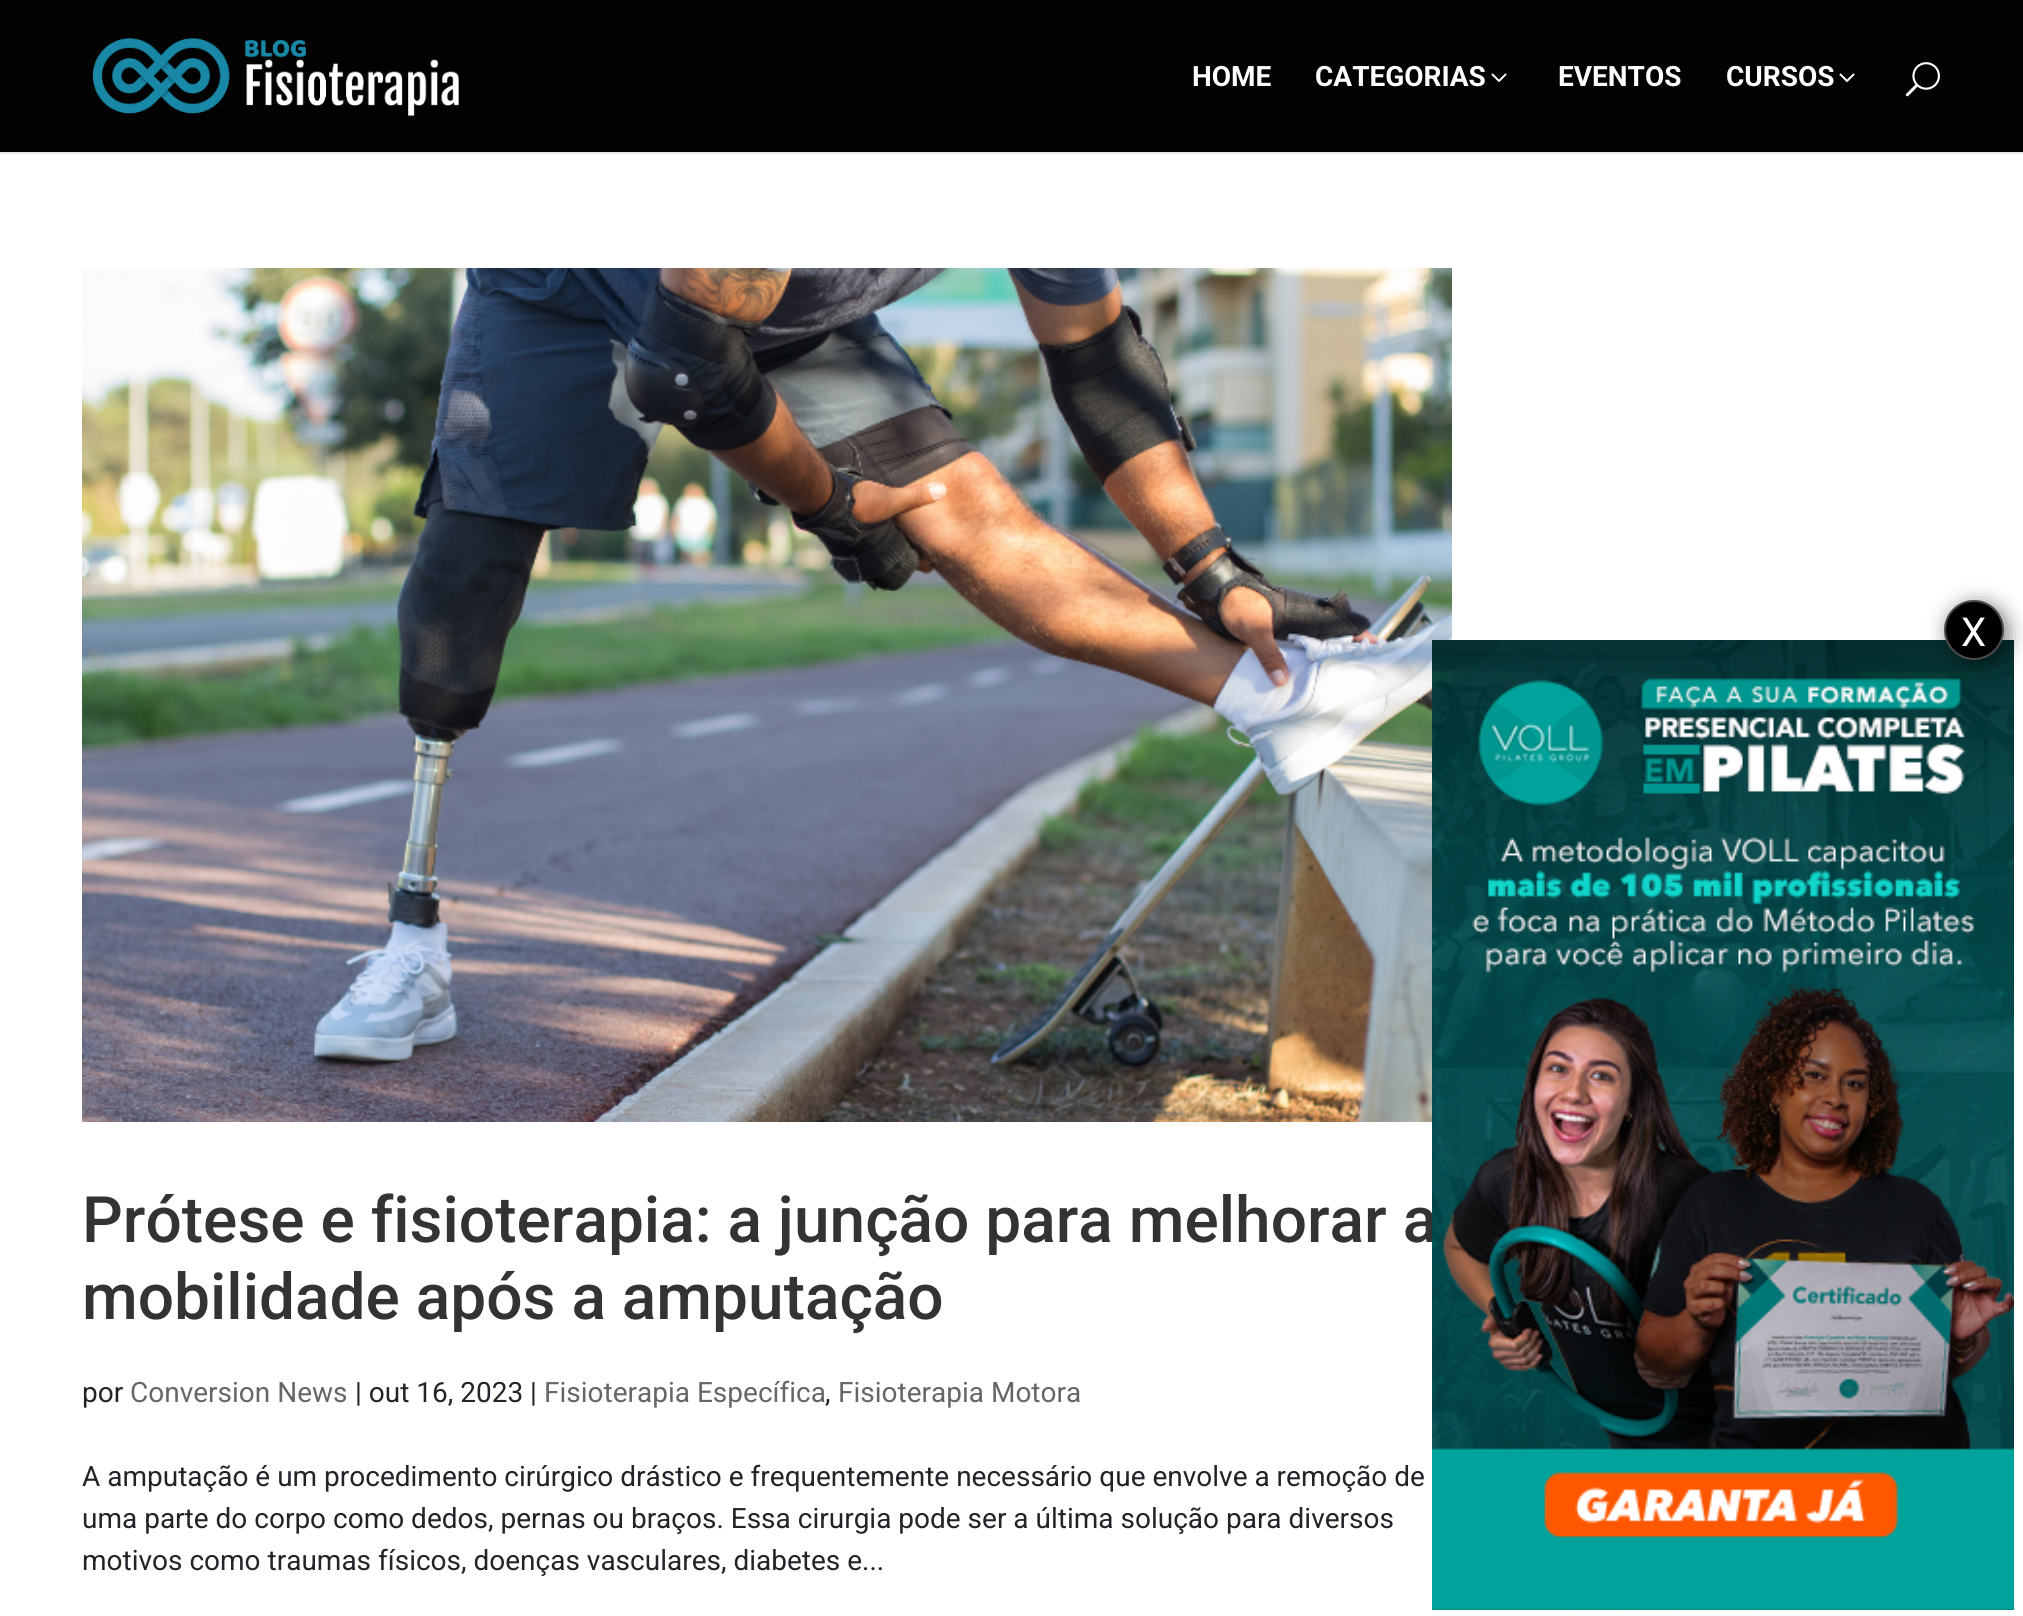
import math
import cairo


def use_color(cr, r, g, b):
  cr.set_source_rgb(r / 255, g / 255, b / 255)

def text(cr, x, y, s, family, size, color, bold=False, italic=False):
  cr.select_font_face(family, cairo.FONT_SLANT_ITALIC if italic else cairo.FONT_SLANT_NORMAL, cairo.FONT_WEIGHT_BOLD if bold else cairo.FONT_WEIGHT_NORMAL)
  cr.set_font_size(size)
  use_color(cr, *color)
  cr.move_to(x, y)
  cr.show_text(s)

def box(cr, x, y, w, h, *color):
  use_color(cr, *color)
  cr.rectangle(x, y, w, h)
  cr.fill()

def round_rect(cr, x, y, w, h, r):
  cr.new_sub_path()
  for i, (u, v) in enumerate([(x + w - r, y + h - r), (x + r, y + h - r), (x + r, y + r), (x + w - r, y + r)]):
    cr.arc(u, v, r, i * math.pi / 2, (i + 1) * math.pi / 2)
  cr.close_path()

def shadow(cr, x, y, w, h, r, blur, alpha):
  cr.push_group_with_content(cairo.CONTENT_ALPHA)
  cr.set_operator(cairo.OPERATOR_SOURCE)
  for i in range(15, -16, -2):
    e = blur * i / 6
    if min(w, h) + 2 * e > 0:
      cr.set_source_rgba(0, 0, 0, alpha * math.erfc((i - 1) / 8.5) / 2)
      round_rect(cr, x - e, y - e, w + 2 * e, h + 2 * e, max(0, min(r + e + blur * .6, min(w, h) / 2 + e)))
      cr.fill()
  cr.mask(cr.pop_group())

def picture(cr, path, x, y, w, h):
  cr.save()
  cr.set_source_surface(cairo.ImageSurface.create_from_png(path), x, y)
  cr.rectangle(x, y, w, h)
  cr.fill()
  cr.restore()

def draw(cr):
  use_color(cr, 255, 255, 255)
  cr.paint()
  box(cr, 0, 152, 2023, 2, 230, 230, 230)
  box(cr, 0, 0, 2023, 152, 2, 2, 2)
  picture(cr, "img_01.png", 92, 38, 367, 79)
  picture(cr, "img_02.png", 1491, 73, 16, 9)
  picture(cr, "img_02.png", 1839, 73, 16, 9)
  picture(cr, "img_03.png", 1905, 62, 35, 35)
  picture(cr, "img_04.png", 82, 268, 1370, 854)
  text(cr, 1192, 86, "HOME", "Roboto", 28, (255, 255, 255), bold=True)
  text(cr, 1315, 86, "CATEGORIAS", "Roboto", 28, (255, 255, 255), bold=True)
  text(cr, 1558, 86, "EVENTOS", "Roboto", 28, (255, 255, 255), bold=True)
  text(cr, 1726, 86, "CURSOS", "Roboto", 28, (255, 255, 255), bold=True)
  text(cr, 82, 1242, "Prótese e fisioterapia: a junção para melhorar a", "Roboto Medium", 64, (51, 51, 51))
  text(cr, 82, 1319, "mobilidade após a amputação", "Roboto Medium", 64, (51, 51, 51))
  text(cr, 82, 1402, "por", "Roboto", 28, (33, 37, 41))
  text(cr, 130, 1402, "Conversion News", "Roboto", 28, (102, 102, 102))
  text(cr, 355, 1402, "| out 16, 2023 |", "Roboto", 28, (33, 37, 41))
  text(cr, 544, 1402, "Fisioterapia Específica", "Roboto", 28, (102, 102, 102))
  text(cr, 825, 1402, ",", "Roboto", 28, (33, 37, 41))
  text(cr, 838, 1402, "Fisioterapia Motora", "Roboto", 28, (102, 102, 102))
  text(cr, 82, 1486, "A amputação é um procedimento cirúrgico drástico e frequentemente necessário que envolve a remoção de", "Roboto", 28, (33, 37, 41))
  text(cr, 82, 1528, "uma parte do corpo como dedos, pernas ou braços. Essa cirurgia pode ser a última solução para diversos", "Roboto", 28, (33, 37, 41))
  text(cr, 82, 1570, "motivos como traumas físicos, doenças vasculares, diabetes e...", "Roboto", 28, (33, 37, 41))
  picture(cr, "img_05.png", 1432, 640, 582, 970)
  use_color(cr, 0, 0, 0)
  shadow(cr, 1948, 604, 60, 60, 30, 10, 0.52)
  use_color(cr, 0, 0, 0)
  cr.arc(1974, 630, 29, 0, 2 * math.pi)
  cr.fill_preserve()
  use_color(cr, 76, 76, 76)
  cr.stroke()
  text(cr, 1961, 646, "X", "Roboto", 40, (255, 255, 255))


surface = cairo.ImageSurface(cairo.FORMAT_RGB24, 2023, 1616)
cr = cairo.Context(surface)
options = cairo.FontOptions()
options.set_hint_metrics(cairo.HINT_METRICS_OFF)
options.set_hint_style(cairo.HINT_STYLE_NONE)
cr.set_font_options(options)
cr.set_miter_limit(4)
draw(cr)
surface.write_to_png("out.png")
